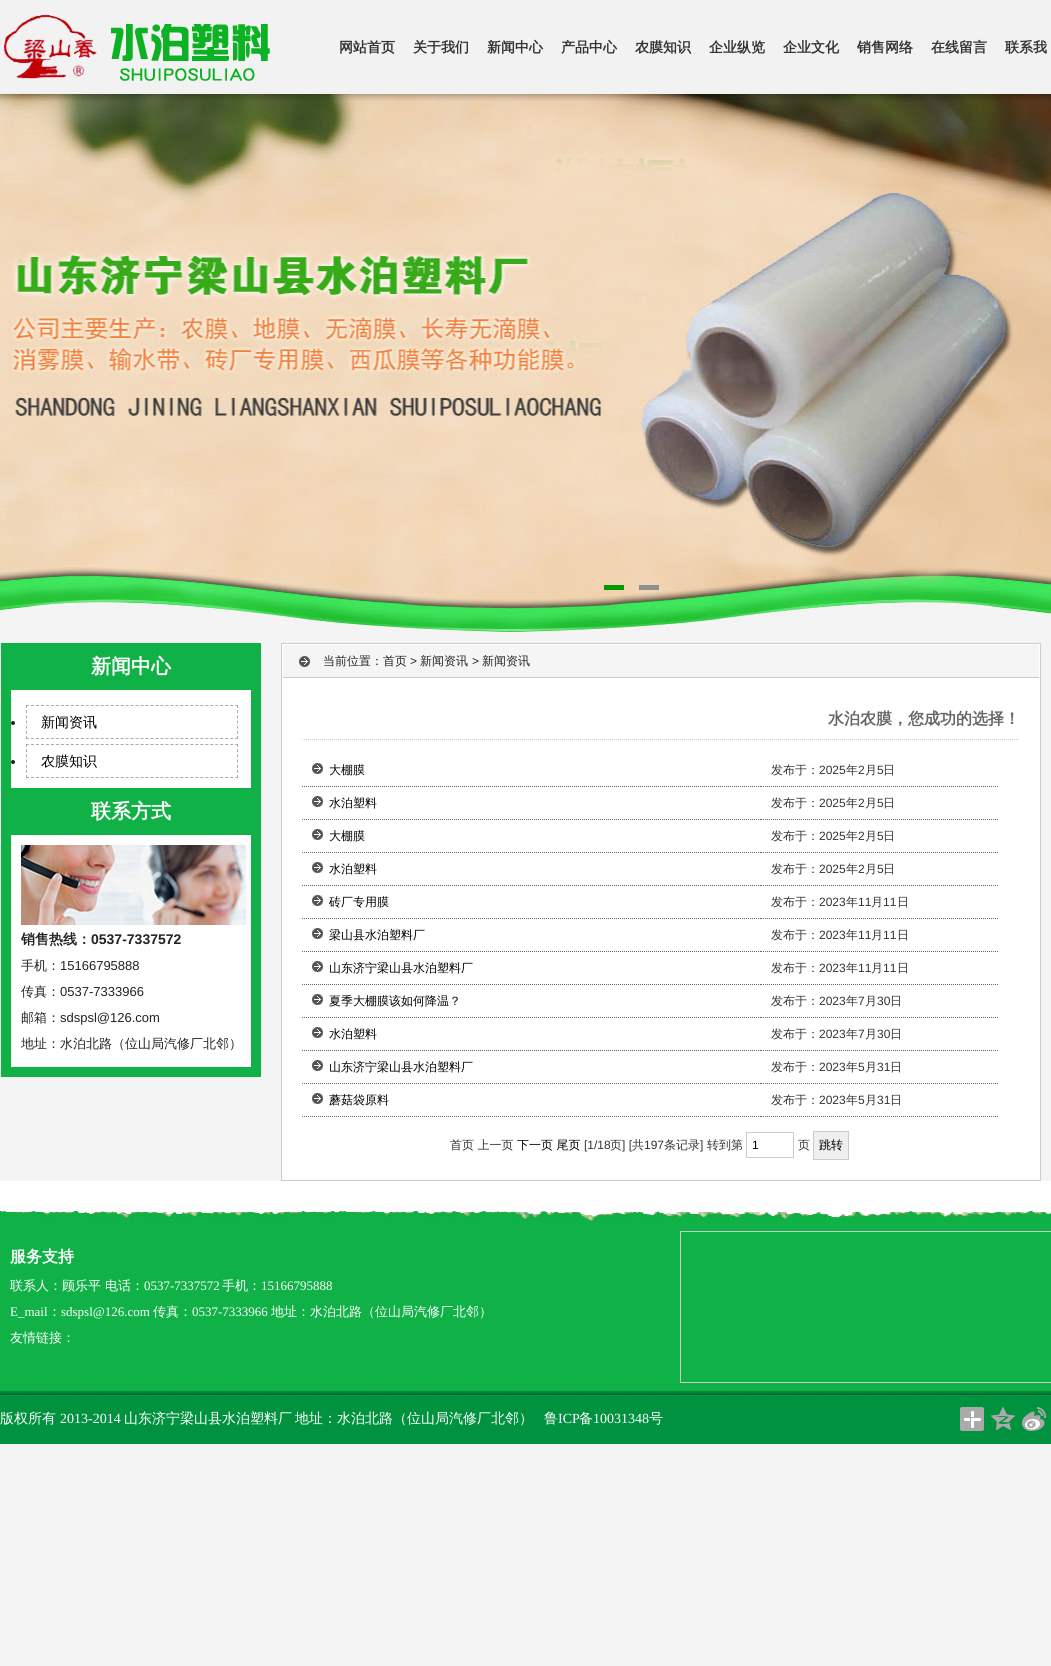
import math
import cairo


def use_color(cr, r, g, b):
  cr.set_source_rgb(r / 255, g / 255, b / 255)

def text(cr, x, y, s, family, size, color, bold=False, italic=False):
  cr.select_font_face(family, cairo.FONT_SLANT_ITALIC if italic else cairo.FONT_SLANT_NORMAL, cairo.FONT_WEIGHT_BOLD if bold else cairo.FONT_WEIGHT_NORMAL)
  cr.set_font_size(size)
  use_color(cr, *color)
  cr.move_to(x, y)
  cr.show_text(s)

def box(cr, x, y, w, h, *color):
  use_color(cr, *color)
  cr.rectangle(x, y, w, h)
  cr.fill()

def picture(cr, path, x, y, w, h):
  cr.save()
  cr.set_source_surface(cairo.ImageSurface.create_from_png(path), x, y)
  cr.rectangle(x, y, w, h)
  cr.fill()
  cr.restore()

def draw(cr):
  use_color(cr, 244, 244, 244)
  cr.paint()
  picture(cr, "img_03.png", 0, 94, 1051, 538)
  picture(cr, "img_01.png", 0, 0, 1051, 101)
  picture(cr, "img_02.png", 3, 14, 267, 67)
  box(cr, 604, 585, 20, 5, 0, 153, 0)
  box(cr, 639, 585, 20, 5, 143, 143, 143)
  box(cr, 1, 643, 260, 434, 16, 177, 70)
  box(cr, 11, 690, 240, 98, 255, 255, 255)
  cr.new_path()
  cr.move_to(26, 705.5)
  cr.line_to(238, 705.5)
  use_color(cr, 171, 171, 171)
  cr.set_line_width(1)
  cr.set_dash([3, 1.98])
  cr.stroke()
  cr.new_path()
  cr.move_to(237.5, 705)
  cr.line_to(237.5, 739)
  cr.set_dash([3, 2.17])
  cr.stroke()
  cr.new_path()
  cr.move_to(26, 738.5)
  cr.line_to(238, 738.5)
  cr.set_dash([3, 1.98])
  cr.stroke()
  cr.new_path()
  cr.move_to(26.5, 705)
  cr.line_to(26.5, 739)
  cr.set_dash([3, 2.17])
  cr.stroke()
  use_color(cr, 34, 34, 34)
  cr.arc(13, 723, 2, 0, 2 * math.pi)
  cr.fill()
  cr.new_path()
  cr.move_to(26, 744.5)
  cr.line_to(238, 744.5)
  use_color(cr, 171, 171, 171)
  cr.set_dash([3, 1.98])
  cr.stroke()
  cr.new_path()
  cr.move_to(237.5, 744)
  cr.line_to(237.5, 778)
  cr.set_dash([3, 2.17])
  cr.stroke()
  cr.new_path()
  cr.move_to(26, 777.5)
  cr.line_to(238, 777.5)
  cr.set_dash([3, 1.98])
  cr.stroke()
  cr.new_path()
  cr.move_to(26.5, 744)
  cr.line_to(26.5, 778)
  cr.set_dash([3, 2.17])
  cr.stroke()
  use_color(cr, 34, 34, 34)
  cr.arc(13, 762, 2, 0, 2 * math.pi)
  cr.fill()
  box(cr, 11, 835, 240, 232, 255, 255, 255)
  picture(cr, "img_04.png", 21, 845, 225, 80)
  cr.rectangle(281.5, 643.5, 759, 537)
  cr.fill_preserve()
  use_color(cr, 204, 204, 204)
  cr.set_dash([])
  cr.stroke()
  box(cr, 283, 645, 756, 32, 245, 245, 245)
  picture(cr, "img_05.png", 299, 656, 11, 11)
  box(cr, 283, 677, 756, 1, 204, 204, 204)
  cr.new_path()
  cr.move_to(302, 739.5)
  cr.line_to(1020, 739.5)
  cr.set_dash([1, 1])
  cr.stroke()
  cr.new_path()
  cr.move_to(302, 786.5)
  cr.line_to(761, 786.5)
  use_color(cr, 102, 102, 102)
  cr.stroke()
  picture(cr, "img_05.png", 312, 763, 11, 11)
  cr.new_path()
  cr.move_to(761, 786.5)
  cr.line_to(998, 786.5)
  cr.stroke()
  cr.new_path()
  cr.move_to(302, 819.5)
  cr.line_to(761, 819.5)
  cr.stroke()
  picture(cr, "img_05.png", 312, 796, 11, 11)
  cr.new_path()
  cr.move_to(761, 819.5)
  cr.line_to(998, 819.5)
  cr.stroke()
  cr.new_path()
  cr.move_to(302, 852.5)
  cr.line_to(761, 852.5)
  cr.stroke()
  picture(cr, "img_05.png", 312, 829, 11, 11)
  cr.new_path()
  cr.move_to(761, 852.5)
  cr.line_to(998, 852.5)
  cr.stroke()
  cr.new_path()
  cr.move_to(302, 885.5)
  cr.line_to(761, 885.5)
  cr.stroke()
  picture(cr, "img_05.png", 312, 862, 11, 11)
  cr.new_path()
  cr.move_to(761, 885.5)
  cr.line_to(998, 885.5)
  cr.stroke()
  cr.new_path()
  cr.move_to(302, 918.5)
  cr.line_to(761, 918.5)
  cr.stroke()
  picture(cr, "img_05.png", 312, 895, 11, 11)
  cr.new_path()
  cr.move_to(761, 918.5)
  cr.line_to(998, 918.5)
  cr.stroke()
  cr.new_path()
  cr.move_to(302, 951.5)
  cr.line_to(761, 951.5)
  cr.stroke()
  picture(cr, "img_05.png", 312, 928, 11, 11)
  cr.new_path()
  cr.move_to(761, 951.5)
  cr.line_to(998, 951.5)
  cr.stroke()
  cr.new_path()
  cr.move_to(302, 984.5)
  cr.line_to(761, 984.5)
  cr.stroke()
  picture(cr, "img_05.png", 312, 961, 11, 11)
  cr.new_path()
  cr.move_to(761, 984.5)
  cr.line_to(998, 984.5)
  cr.stroke()
  cr.new_path()
  cr.move_to(302, 1017.5)
  cr.line_to(761, 1017.5)
  cr.stroke()
  picture(cr, "img_05.png", 312, 994, 11, 11)
  cr.new_path()
  cr.move_to(761, 1017.5)
  cr.line_to(998, 1017.5)
  cr.stroke()
  cr.new_path()
  cr.move_to(302, 1050.5)
  cr.line_to(761, 1050.5)
  cr.stroke()
  picture(cr, "img_05.png", 312, 1027, 11, 11)
  cr.new_path()
  cr.move_to(761, 1050.5)
  cr.line_to(998, 1050.5)
  cr.stroke()
  cr.new_path()
  cr.move_to(302, 1083.5)
  cr.line_to(761, 1083.5)
  cr.stroke()
  picture(cr, "img_05.png", 312, 1060, 11, 11)
  cr.new_path()
  cr.move_to(761, 1083.5)
  cr.line_to(998, 1083.5)
  cr.stroke()
  cr.new_path()
  cr.move_to(302, 1116.5)
  cr.line_to(761, 1116.5)
  cr.stroke()
  picture(cr, "img_05.png", 312, 1093, 11, 11)
  cr.new_path()
  cr.move_to(761, 1116.5)
  cr.line_to(998, 1116.5)
  cr.stroke()
  cr.rectangle(746.5, 1132.5, 47, 25)
  use_color(cr, 204, 204, 204)
  cr.set_dash([])
  cr.stroke()
  use_color(cr, 239, 239, 239)
  cr.rectangle(813.5, 1131.5, 35, 28)
  cr.fill_preserve()
  use_color(cr, 204, 204, 204)
  cr.stroke()
  picture(cr, "img_06.png", 0, 1181, 1051, 210)
  cr.rectangle(680.5, 1231.5, 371, 151)
  cr.stroke()
  picture(cr, "img_07.png", 0, 1391, 1051, 53)
  picture(cr, "img_08.png", 960, 1407, 24, 24)
  picture(cr, "img_09.png", 991, 1407, 24, 23)
  picture(cr, "img_10.png", 1022, 1407, 24, 24)
  text(cr, 339, 52, "网站首页", "WenQuanYi Zen Hei", 14, (51, 51, 51), bold=True)
  text(cr, 413, 52, "关于我们", "WenQuanYi Zen Hei", 14, (51, 51, 51), bold=True)
  text(cr, 487, 52, "新闻中心", "WenQuanYi Zen Hei", 14, (51, 51, 51), bold=True)
  text(cr, 561, 52, "产品中心", "WenQuanYi Zen Hei", 14, (51, 51, 51), bold=True)
  text(cr, 635, 52, "农膜知识", "WenQuanYi Zen Hei", 14, (51, 51, 51), bold=True)
  text(cr, 709, 52, "企业纵览", "WenQuanYi Zen Hei", 14, (51, 51, 51), bold=True)
  text(cr, 783, 52, "企业文化", "WenQuanYi Zen Hei", 14, (51, 51, 51), bold=True)
  text(cr, 857, 52, "销售网络", "WenQuanYi Zen Hei", 14, (51, 51, 51), bold=True)
  text(cr, 931, 52, "在线留言", "WenQuanYi Zen Hei", 14, (51, 51, 51), bold=True)
  text(cr, 1005, 52, "联系我", "WenQuanYi Zen Hei", 14, (51, 51, 51), bold=True)
  text(cr, 91, 673, "新闻中心", "WenQuanYi Zen Hei", 20, (255, 255, 255), bold=True)
  text(cr, 41, 727, "新闻资讯", "WenQuanYi Zen Hei Medium", 14, (0, 0, 0))
  text(cr, 41, 766, "农膜知识", "WenQuanYi Zen Hei Medium", 14, (0, 0, 0))
  text(cr, 91, 818, "联系方式", "WenQuanYi Zen Hei", 20, (255, 255, 255), bold=True)
  text(cr, 21, 944, "销售热线：", "WenQuanYi Zen Hei", 14, (34, 34, 34), bold=True)
  text(cr, 91, 944, "0537-7337572", "Liberation Sans", 14, (34, 34, 34), bold=True)
  text(cr, 21, 970, "手机：", "WenQuanYi Zen Hei Medium", 13, (34, 34, 34))
  text(cr, 60, 970, "15166795888", "Liberation Sans", 13, (34, 34, 34))
  text(cr, 21, 996, "传真：", "WenQuanYi Zen Hei Medium", 13, (34, 34, 34))
  text(cr, 60, 996, "0537-7333966", "Liberation Sans", 13, (34, 34, 34))
  text(cr, 21, 1022, "邮箱：", "WenQuanYi Zen Hei Medium", 13, (34, 34, 34))
  text(cr, 60, 1022, "sdspsl@126.com", "Liberation Sans", 13, (34, 34, 34))
  text(cr, 21, 1048, "地址：水泊北路（位山局汽修厂北邻）", "WenQuanYi Zen Hei Medium", 13, (34, 34, 34))
  text(cr, 323, 665, "当前位置：首页", "WenQuanYi Zen Hei Medium", 12, (34, 34, 34))
  text(cr, 410, 665, ">", "Liberation Sans", 12, (34, 34, 34))
  text(cr, 420, 665, "新闻资讯", "WenQuanYi Zen Hei Medium", 12, (34, 34, 34))
  text(cr, 472, 665, ">", "Liberation Sans", 12, (34, 34, 34))
  text(cr, 482, 665, "新闻资讯", "WenQuanYi Zen Hei Medium", 12, (34, 34, 34))
  text(cr, 828, 724, "水泊农膜，您成功的选择！", "WenQuanYi Zen Hei", 16, (102, 102, 102), bold=True)
  text(cr, 329, 774, "大棚膜", "WenQuanYi Zen Hei Medium", 12, (0, 0, 0))
  text(cr, 771, 774, "发布于：", "WenQuanYi Zen Hei Medium", 12, (51, 51, 51))
  text(cr, 819, 774, "2025", "Liberation Sans", 12, (51, 51, 51))
  text(cr, 846, 774, "年", "WenQuanYi Zen Hei Medium", 12, (51, 51, 51))
  text(cr, 858, 774, "2", "Liberation Sans", 12, (51, 51, 51))
  text(cr, 865, 774, "月", "WenQuanYi Zen Hei Medium", 12, (51, 51, 51))
  text(cr, 877, 774, "5", "Liberation Sans", 12, (51, 51, 51))
  text(cr, 883, 774, "日", "WenQuanYi Zen Hei Medium", 12, (51, 51, 51))
  text(cr, 329, 807, "水泊塑料", "WenQuanYi Zen Hei Medium", 12, (0, 0, 0))
  text(cr, 771, 807, "发布于：", "WenQuanYi Zen Hei Medium", 12, (51, 51, 51))
  text(cr, 819, 807, "2025", "Liberation Sans", 12, (51, 51, 51))
  text(cr, 846, 807, "年", "WenQuanYi Zen Hei Medium", 12, (51, 51, 51))
  text(cr, 858, 807, "2", "Liberation Sans", 12, (51, 51, 51))
  text(cr, 865, 807, "月", "WenQuanYi Zen Hei Medium", 12, (51, 51, 51))
  text(cr, 877, 807, "5", "Liberation Sans", 12, (51, 51, 51))
  text(cr, 883, 807, "日", "WenQuanYi Zen Hei Medium", 12, (51, 51, 51))
  text(cr, 329, 840, "大棚膜", "WenQuanYi Zen Hei Medium", 12, (0, 0, 0))
  text(cr, 771, 840, "发布于：", "WenQuanYi Zen Hei Medium", 12, (51, 51, 51))
  text(cr, 819, 840, "2025", "Liberation Sans", 12, (51, 51, 51))
  text(cr, 846, 840, "年", "WenQuanYi Zen Hei Medium", 12, (51, 51, 51))
  text(cr, 858, 840, "2", "Liberation Sans", 12, (51, 51, 51))
  text(cr, 865, 840, "月", "WenQuanYi Zen Hei Medium", 12, (51, 51, 51))
  text(cr, 877, 840, "5", "Liberation Sans", 12, (51, 51, 51))
  text(cr, 883, 840, "日", "WenQuanYi Zen Hei Medium", 12, (51, 51, 51))
  text(cr, 329, 873, "水泊塑料", "WenQuanYi Zen Hei Medium", 12, (0, 0, 0))
  text(cr, 771, 873, "发布于：", "WenQuanYi Zen Hei Medium", 12, (51, 51, 51))
  text(cr, 819, 873, "2025", "Liberation Sans", 12, (51, 51, 51))
  text(cr, 846, 873, "年", "WenQuanYi Zen Hei Medium", 12, (51, 51, 51))
  text(cr, 858, 873, "2", "Liberation Sans", 12, (51, 51, 51))
  text(cr, 865, 873, "月", "WenQuanYi Zen Hei Medium", 12, (51, 51, 51))
  text(cr, 877, 873, "5", "Liberation Sans", 12, (51, 51, 51))
  text(cr, 883, 873, "日", "WenQuanYi Zen Hei Medium", 12, (51, 51, 51))
  text(cr, 329, 906, "砖厂专用膜", "WenQuanYi Zen Hei Medium", 12, (0, 0, 0))
  text(cr, 771, 906, "发布于：", "WenQuanYi Zen Hei Medium", 12, (51, 51, 51))
  text(cr, 819, 906, "2023", "Liberation Sans", 12, (51, 51, 51))
  text(cr, 846, 906, "年", "WenQuanYi Zen Hei Medium", 12, (51, 51, 51))
  text(cr, 858, 906, "11", "Liberation Sans", 12, (51, 51, 51))
  text(cr, 871, 906, "月", "WenQuanYi Zen Hei Medium", 12, (51, 51, 51))
  text(cr, 883, 906, "11", "Liberation Sans", 12, (51, 51, 51))
  text(cr, 897, 906, "日", "WenQuanYi Zen Hei Medium", 12, (51, 51, 51))
  text(cr, 329, 939, "梁山县水泊塑料厂", "WenQuanYi Zen Hei Medium", 12, (0, 0, 0))
  text(cr, 771, 939, "发布于：", "WenQuanYi Zen Hei Medium", 12, (51, 51, 51))
  text(cr, 819, 939, "2023", "Liberation Sans", 12, (51, 51, 51))
  text(cr, 846, 939, "年", "WenQuanYi Zen Hei Medium", 12, (51, 51, 51))
  text(cr, 858, 939, "11", "Liberation Sans", 12, (51, 51, 51))
  text(cr, 871, 939, "月", "WenQuanYi Zen Hei Medium", 12, (51, 51, 51))
  text(cr, 883, 939, "11", "Liberation Sans", 12, (51, 51, 51))
  text(cr, 897, 939, "日", "WenQuanYi Zen Hei Medium", 12, (51, 51, 51))
  text(cr, 329, 972, "山东济宁梁山县水泊塑料厂", "WenQuanYi Zen Hei Medium", 12, (0, 0, 0))
  text(cr, 771, 972, "发布于：", "WenQuanYi Zen Hei Medium", 12, (51, 51, 51))
  text(cr, 819, 972, "2023", "Liberation Sans", 12, (51, 51, 51))
  text(cr, 846, 972, "年", "WenQuanYi Zen Hei Medium", 12, (51, 51, 51))
  text(cr, 858, 972, "11", "Liberation Sans", 12, (51, 51, 51))
  text(cr, 871, 972, "月", "WenQuanYi Zen Hei Medium", 12, (51, 51, 51))
  text(cr, 883, 972, "11", "Liberation Sans", 12, (51, 51, 51))
  text(cr, 897, 972, "日", "WenQuanYi Zen Hei Medium", 12, (51, 51, 51))
  text(cr, 329, 1005, "夏季大棚膜该如何降温？", "WenQuanYi Zen Hei Medium", 12, (0, 0, 0))
  text(cr, 771, 1005, "发布于：", "WenQuanYi Zen Hei Medium", 12, (51, 51, 51))
  text(cr, 819, 1005, "2023", "Liberation Sans", 12, (51, 51, 51))
  text(cr, 846, 1005, "年", "WenQuanYi Zen Hei Medium", 12, (51, 51, 51))
  text(cr, 858, 1005, "7", "Liberation Sans", 12, (51, 51, 51))
  text(cr, 865, 1005, "月", "WenQuanYi Zen Hei Medium", 12, (51, 51, 51))
  text(cr, 877, 1005, "30", "Liberation Sans", 12, (51, 51, 51))
  text(cr, 890, 1005, "日", "WenQuanYi Zen Hei Medium", 12, (51, 51, 51))
  text(cr, 329, 1038, "水泊塑料", "WenQuanYi Zen Hei Medium", 12, (0, 0, 0))
  text(cr, 771, 1038, "发布于：", "WenQuanYi Zen Hei Medium", 12, (51, 51, 51))
  text(cr, 819, 1038, "2023", "Liberation Sans", 12, (51, 51, 51))
  text(cr, 846, 1038, "年", "WenQuanYi Zen Hei Medium", 12, (51, 51, 51))
  text(cr, 858, 1038, "7", "Liberation Sans", 12, (51, 51, 51))
  text(cr, 865, 1038, "月", "WenQuanYi Zen Hei Medium", 12, (51, 51, 51))
  text(cr, 877, 1038, "30", "Liberation Sans", 12, (51, 51, 51))
  text(cr, 890, 1038, "日", "WenQuanYi Zen Hei Medium", 12, (51, 51, 51))
  text(cr, 329, 1071, "山东济宁梁山县水泊塑料厂", "WenQuanYi Zen Hei Medium", 12, (0, 0, 0))
  text(cr, 771, 1071, "发布于：", "WenQuanYi Zen Hei Medium", 12, (51, 51, 51))
  text(cr, 819, 1071, "2023", "Liberation Sans", 12, (51, 51, 51))
  text(cr, 846, 1071, "年", "WenQuanYi Zen Hei Medium", 12, (51, 51, 51))
  text(cr, 858, 1071, "5", "Liberation Sans", 12, (51, 51, 51))
  text(cr, 865, 1071, "月", "WenQuanYi Zen Hei Medium", 12, (51, 51, 51))
  text(cr, 877, 1071, "31", "Liberation Sans", 12, (51, 51, 51))
  text(cr, 890, 1071, "日", "WenQuanYi Zen Hei Medium", 12, (51, 51, 51))
  text(cr, 329, 1104, "蘑菇袋原料", "WenQuanYi Zen Hei Medium", 12, (0, 0, 0))
  text(cr, 771, 1104, "发布于：", "WenQuanYi Zen Hei Medium", 12, (51, 51, 51))
  text(cr, 819, 1104, "2023", "Liberation Sans", 12, (51, 51, 51))
  text(cr, 846, 1104, "年", "WenQuanYi Zen Hei Medium", 12, (51, 51, 51))
  text(cr, 858, 1104, "5", "Liberation Sans", 12, (51, 51, 51))
  text(cr, 865, 1104, "月", "WenQuanYi Zen Hei Medium", 12, (51, 51, 51))
  text(cr, 877, 1104, "31", "Liberation Sans", 12, (51, 51, 51))
  text(cr, 890, 1104, "日", "WenQuanYi Zen Hei Medium", 12, (51, 51, 51))
  text(cr, 450, 1149, "首页 上一页", "WenQuanYi Zen Hei Medium", 12, (51, 51, 51))
  text(cr, 517, 1149, "下一页 尾页", "WenQuanYi Zen Hei Medium", 12, (0, 0, 0))
  text(cr, 584, 1149, "[1/18", "Liberation Sans", 12, (51, 51, 51))
  text(cr, 610, 1149, "页", "WenQuanYi Zen Hei Medium", 12, (51, 51, 51))
  text(cr, 622, 1149, "] [", "Liberation Sans", 12, (51, 51, 51))
  text(cr, 632, 1149, "共", "WenQuanYi Zen Hei Medium", 12, (51, 51, 51))
  text(cr, 644, 1149, "197", "Liberation Sans", 12, (51, 51, 51))
  text(cr, 664, 1149, "条记录", "WenQuanYi Zen Hei Medium", 12, (51, 51, 51))
  text(cr, 700, 1149, "]", "Liberation Sans", 12, (51, 51, 51))
  text(cr, 707, 1149, "转到第", "WenQuanYi Zen Hei Medium", 12, (51, 51, 51))
  text(cr, 752, 1149, "1", "Liberation Sans", 12, (0, 0, 0))
  text(cr, 798, 1149, "页", "WenQuanYi Zen Hei Medium", 12, (51, 51, 51))
  text(cr, 819, 1149, "跳转", "WenQuanYi Zen Hei Medium", 12, (0, 0, 0))
  text(cr, 10, 1262, "服务支持", "WenQuanYi Zen Hei", 16, (255, 255, 255), bold=True)
  text(cr, 10, 1290, "联系人：顾乐平 电话：", "WenQuanYi Zen Hei Medium", 13, (255, 255, 255))
  text(cr, 144, 1290, "0537-7337572", "Liberation Serif", 13, (255, 255, 255))
  text(cr, 222, 1290, "手机：", "WenQuanYi Zen Hei Medium", 13, (255, 255, 255))
  text(cr, 261, 1290, "15166795888", "Liberation Serif", 13, (255, 255, 255))
  text(cr, 10, 1316, "E_mail", "Liberation Serif", 13, (255, 255, 255))
  text(cr, 48, 1316, "：", "WenQuanYi Zen Hei Medium", 13, (255, 255, 255))
  text(cr, 61, 1316, "sdspsl@126.com", "Liberation Serif", 13, (255, 255, 255))
  text(cr, 153, 1316, "传真：", "WenQuanYi Zen Hei Medium", 13, (255, 255, 255))
  text(cr, 192, 1316, "0537-7333966", "Liberation Serif", 13, (255, 255, 255))
  text(cr, 271, 1316, "地址：水泊北路（位山局汽修厂北邻）", "WenQuanYi Zen Hei Medium", 13, (255, 255, 255))
  text(cr, 10, 1342, "友情链接：", "WenQuanYi Zen Hei Medium", 13, (255, 255, 255))
  text(cr, 0, 1423, "版权所有", "WenQuanYi Zen Hei Medium", 14, (255, 255, 255))
  text(cr, 60, 1423, "2013-2014", "Liberation Serif", 14, (255, 255, 255))
  text(cr, 124, 1423, "山东济宁梁山县水泊塑料厂", "WenQuanYi Zen Hei Medium", 14, (255, 255, 255))
  text(cr, 295, 1423, "地址：水泊北路（位山局汽修厂北邻）", "WenQuanYi Zen Hei Medium", 14, (255, 255, 255))
  text(cr, 544, 1423, "鲁", "WenQuanYi Zen Hei Medium", 14, (255, 255, 255))
  text(cr, 558, 1423, "ICP", "Liberation Serif", 14, (255, 255, 255))
  text(cr, 579, 1423, "备", "WenQuanYi Zen Hei Medium", 14, (255, 255, 255))
  text(cr, 593, 1423, "10031348", "Liberation Serif", 14, (255, 255, 255))
  text(cr, 649, 1423, "号", "WenQuanYi Zen Hei Medium", 14, (255, 255, 255))


surface = cairo.ImageSurface(cairo.FORMAT_RGB24, 1051, 1666)
cr = cairo.Context(surface)
options = cairo.FontOptions()
options.set_hint_metrics(cairo.HINT_METRICS_OFF)
options.set_hint_style(cairo.HINT_STYLE_NONE)
cr.set_font_options(options)
cr.set_miter_limit(4)
draw(cr)
surface.write_to_png("out.png")
